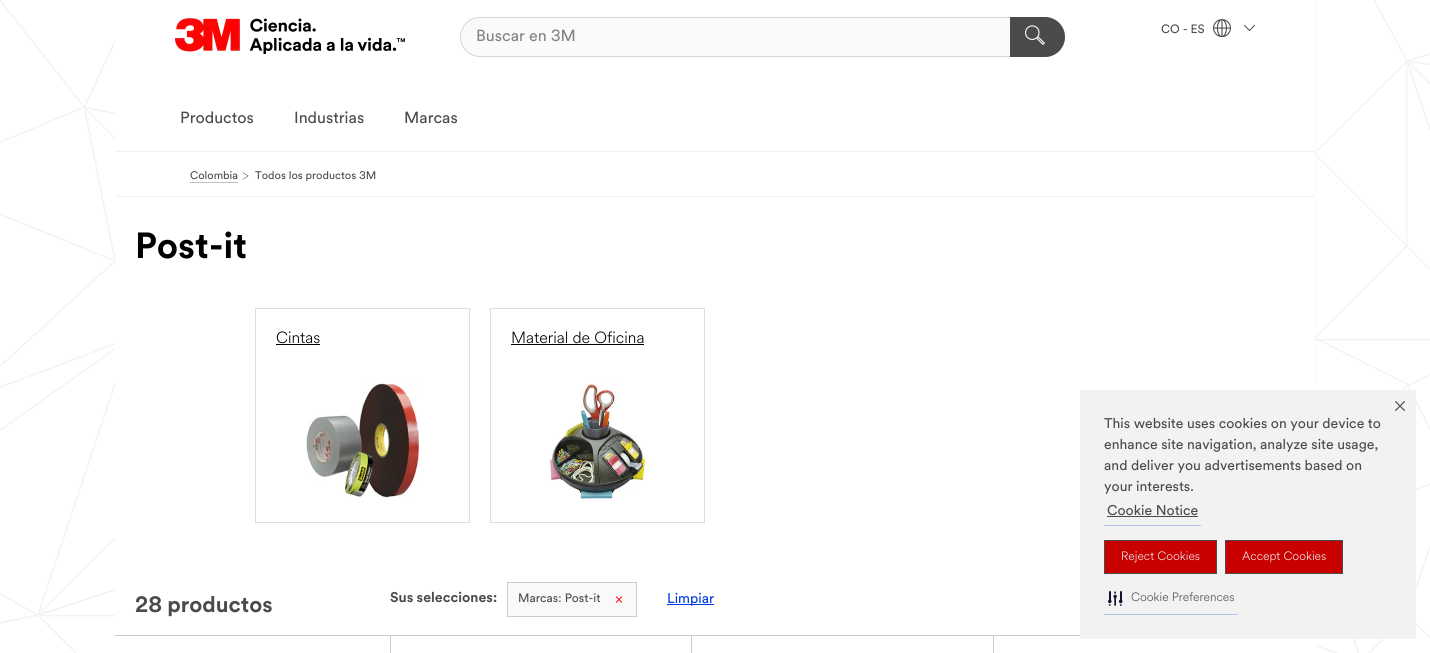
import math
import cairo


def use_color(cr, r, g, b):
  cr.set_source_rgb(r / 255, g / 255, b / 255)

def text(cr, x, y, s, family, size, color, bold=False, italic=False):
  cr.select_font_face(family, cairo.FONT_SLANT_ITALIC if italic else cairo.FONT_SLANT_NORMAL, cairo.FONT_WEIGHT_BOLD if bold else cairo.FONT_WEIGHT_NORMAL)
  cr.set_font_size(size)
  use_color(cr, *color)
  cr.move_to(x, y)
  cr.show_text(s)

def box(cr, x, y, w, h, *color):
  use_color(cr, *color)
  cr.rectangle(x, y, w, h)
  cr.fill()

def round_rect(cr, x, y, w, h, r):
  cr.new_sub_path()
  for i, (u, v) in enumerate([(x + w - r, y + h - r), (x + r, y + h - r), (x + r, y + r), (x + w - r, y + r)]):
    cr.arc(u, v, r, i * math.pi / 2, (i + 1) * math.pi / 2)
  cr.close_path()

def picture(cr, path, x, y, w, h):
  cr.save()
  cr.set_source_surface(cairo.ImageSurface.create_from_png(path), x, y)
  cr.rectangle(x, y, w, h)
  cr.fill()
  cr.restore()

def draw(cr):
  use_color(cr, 255, 255, 255)
  cr.paint()
  picture(cr, "img_01.png", 0, 0, 1430, 653)
  box(cr, 115, 0, 1200, 653, 255, 255, 255)
  box(cr, 115, 151, 1200, 1, 242, 242, 242)
  picture(cr, "img_02.png", 1213, 19, 18, 19)
  picture(cr, "img_03.png", 1244, 24, 11, 7)
  picture(cr, "img_04.png", 175, 18, 230, 36)
  use_color(cr, 250, 250, 250)
  round_rect(cr, 460.5, 17.5, 604, 39, 19.5)
  cr.fill_preserve()
  use_color(cr, 214, 214, 214)
  cr.set_line_width(1)
  cr.stroke()
  use_color(cr, 75, 75, 75)
  cr.new_path()
  cr.move_to(1010, 17)
  cr.line_to(1045, 17)
  cr.curve_to(1056, 17, 1065, 26, 1065, 37)
  cr.curve_to(1065, 48, 1056, 57, 1045, 57)
  cr.line_to(1010, 57)
  cr.close_path()
  cr.fill()
  picture(cr, "img_05.png", 1025, 25, 20, 20)
  box(cr, 115, 196, 1200, 1, 242, 242, 242)
  box(cr, 190, 182, 48, 1, 191, 191, 191)
  picture(cr, "img_06.png", 242, 172, 7, 8)
  cr.rectangle(255.5, 308.5, 214, 214)
  use_color(cr, 221, 221, 221)
  cr.stroke()
  box(cr, 276, 344, 44, 1, 0, 0, 0)
  picture(cr, "img_07.png", 306, 382, 114, 116)
  cr.rectangle(490.5, 308.5, 214, 214)
  use_color(cr, 221, 221, 221)
  cr.stroke()
  box(cr, 511, 344, 133, 1, 0, 0, 0)
  picture(cr, "img_08.png", 549, 383, 100, 119)
  use_color(cr, 249, 249, 249)
  cr.rectangle(507.5, 582.5, 129, 34)
  cr.fill_preserve()
  use_color(cr, 204, 204, 204)
  cr.stroke()
  picture(cr, "img_09.png", 615, 596, 8, 7)
  box(cr, 667, 604, 47, 1, 0, 60, 230)
  box(cr, 115, 635, 965, 1, 204, 204, 204)
  box(cr, 691, 636, 1, 17, 204, 204, 204)
  box(cr, 993, 636, 1, 17, 204, 204, 204)
  box(cr, 390, 635, 1, 18, 204, 204, 204)
  box(cr, 1080, 390, 336, 249, 242, 242, 242)
  box(cr, 1104, 525, 97, 1, 182, 194, 233)
  box(cr, 1107, 516, 91, 1, 75, 75, 75)
  picture(cr, "img_10.png", 1395, 401, 10, 10)
  use_color(cr, 200, 0, 0)
  cr.rectangle(1104.5, 540.5, 112, 33)
  cr.fill_preserve()
  use_color(cr, 75, 75, 75)
  cr.stroke()
  use_color(cr, 200, 0, 0)
  cr.rectangle(1225.5, 540.5, 117, 33)
  cr.fill_preserve()
  use_color(cr, 75, 75, 75)
  cr.stroke()
  box(cr, 1104, 614, 134, 1, 182, 194, 233)
  picture(cr, "img_11.png", 1108, 591, 15, 15)
  text(cr, 1161, 33, "CO - ES", "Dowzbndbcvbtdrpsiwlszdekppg", 12, (75, 75, 75))
  text(cr, 180, 123, "Productos", "Dowzbndbcvbtdrpsiwlszdekppg", 16, (75, 75, 75))
  text(cr, 294, 123, "Industrias", "Dowzbndbcvbtdrpsiwlszdekppg", 16, (75, 75, 75))
  text(cr, 404, 123, "Marcas", "Dowzbndbcvbtdrpsiwlszdekppg", 16, (75, 75, 75))
  text(cr, 476, 41, "Buscar en 3M", "Dowzbndbcvbtdrpsiwlszdekppg", 16, (131, 131, 131))
  text(cr, 190, 179, "Colombia", "Dowzbndbcvbtdrpsiwlszdekppg", 11, (75, 75, 75))
  text(cr, 255, 179, "Todos los productos 3M", "Dowzbndbcvbtdrpsiwlszdekppg", 11, (75, 75, 75))
  text(cr, 135, 258, "Post-it", "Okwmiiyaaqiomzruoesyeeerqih", 36, (0, 0, 0), bold=True)
  text(cr, 276, 343, "Cintas", "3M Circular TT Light", 16, (0, 0, 0))
  text(cr, 511, 343, "Material de Oficina", "3M Circular TT Light", 16, (0, 0, 0))
  text(cr, 135, 612, "28 productos", "Okwmiiyaaqiomzruoesyeeerqih", 22, (75, 75, 75), bold=True)
  text(cr, 390, 602, "Sus selecciones:", "Okwmiiyaaqiomzruoesyeeerqih", 14, (75, 75, 75), bold=True)
  text(cr, 518, 602, "Marcas: Post-it", "Dowzbndbcvbtdrpsiwlszdekppg", 12, (75, 75, 75))
  text(cr, 667, 603, "Limpiar", "Dowzbndbcvbtdrpsiwlszdekppg", 14, (0, 60, 230))
  text(cr, 1104, 428, "This website uses cookies on your device to", "Dowzbndbcvbtdrpsiwlszdekppg", 14, (75, 75, 75))
  text(cr, 1104, 449, "enhance site navigation, analyze site usage,", "Dowzbndbcvbtdrpsiwlszdekppg", 14, (75, 75, 75))
  text(cr, 1104, 470, "and deliver you advertisements based on", "Dowzbndbcvbtdrpsiwlszdekppg", 14, (75, 75, 75))
  text(cr, 1104, 491, "your interests.", "Dowzbndbcvbtdrpsiwlszdekppg", 14, (75, 75, 75))
  text(cr, 1107, 515, "Cookie Notice", "Dowzbndbcvbtdrpsiwlszdekppg", 14, (75, 75, 75))
  text(cr, 1121, 560, "Reject Cookies", "3M Circular TT Light", 12, (242, 242, 242))
  text(cr, 1242, 560, "Accept Cookies", "3M Circular TT Light", 12, (242, 242, 242))
  text(cr, 1131, 601, "Cookie Preferences", "3M Circular TT Light", 12, (75, 75, 75))


surface = cairo.ImageSurface(cairo.FORMAT_RGB24, 1430, 653)
cr = cairo.Context(surface)
options = cairo.FontOptions()
options.set_hint_metrics(cairo.HINT_METRICS_OFF)
options.set_hint_style(cairo.HINT_STYLE_NONE)
cr.set_font_options(options)
cr.set_miter_limit(4)
draw(cr)
surface.write_to_png("out.png")
